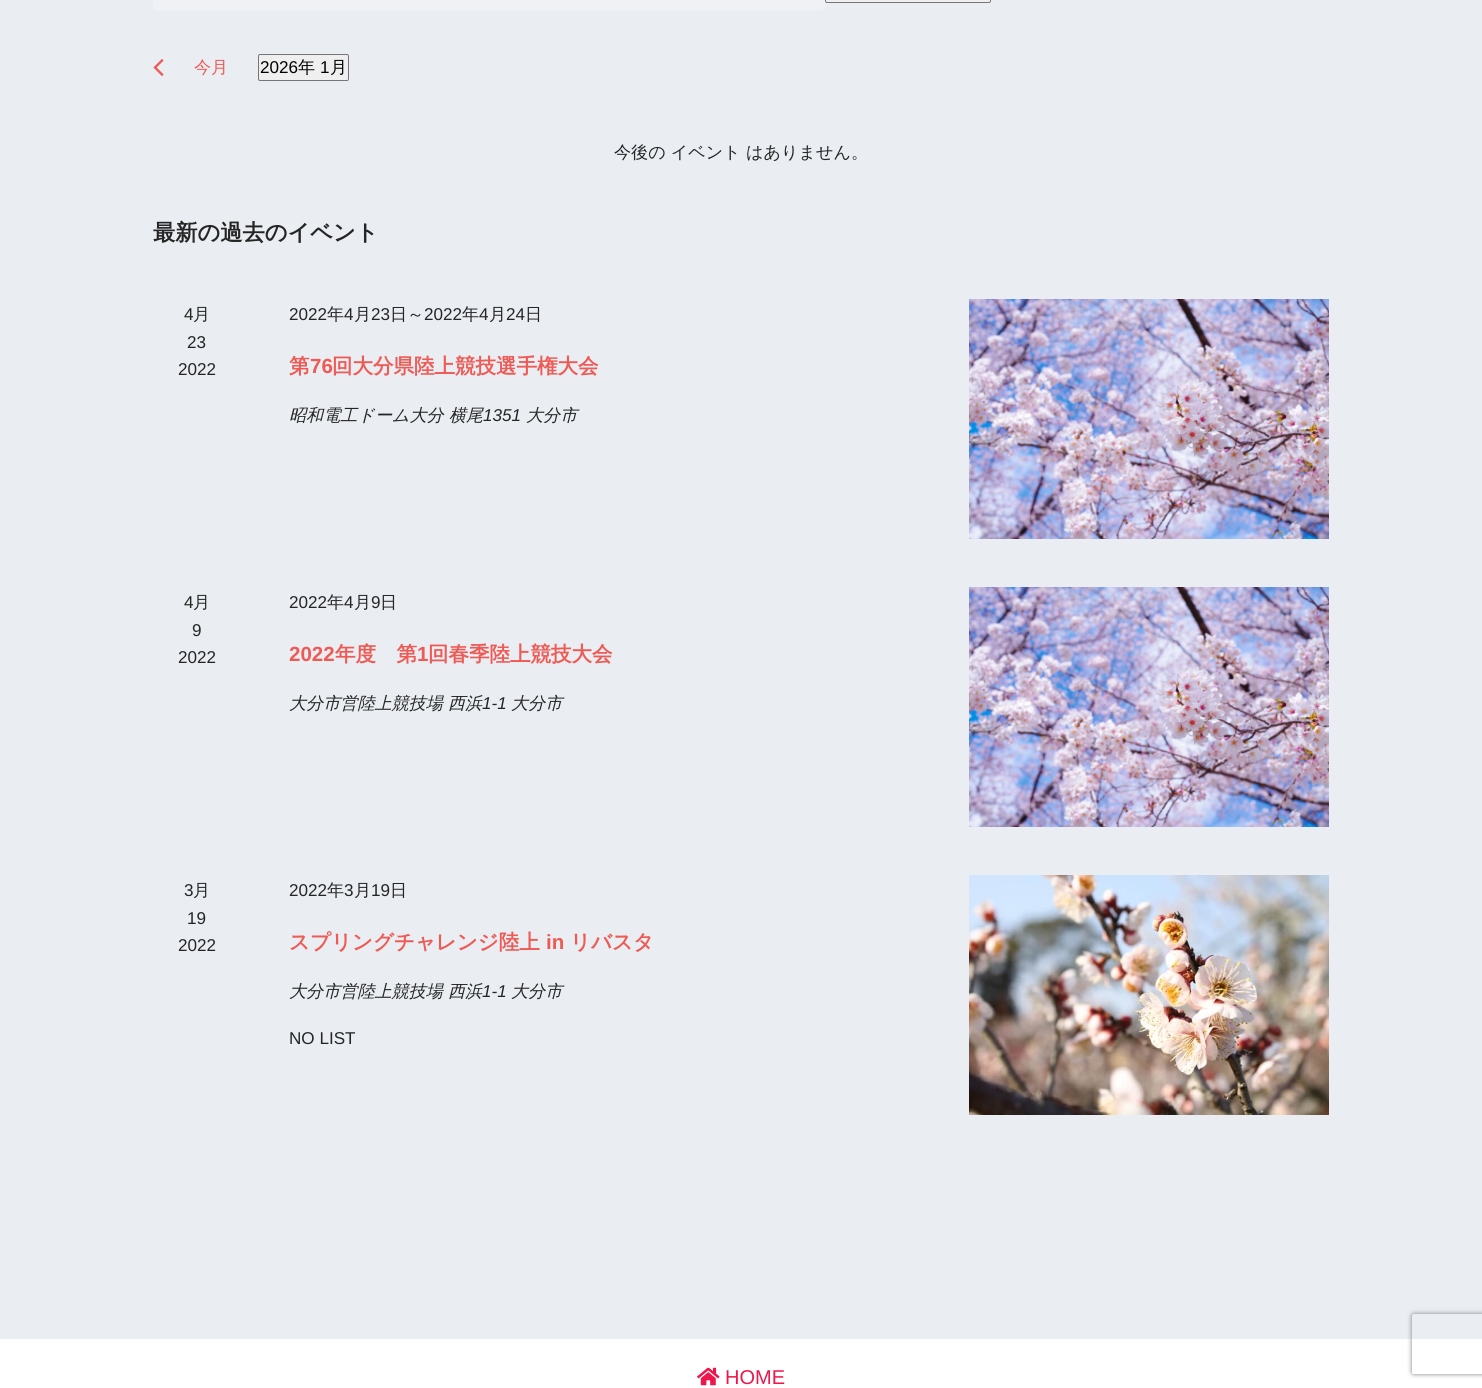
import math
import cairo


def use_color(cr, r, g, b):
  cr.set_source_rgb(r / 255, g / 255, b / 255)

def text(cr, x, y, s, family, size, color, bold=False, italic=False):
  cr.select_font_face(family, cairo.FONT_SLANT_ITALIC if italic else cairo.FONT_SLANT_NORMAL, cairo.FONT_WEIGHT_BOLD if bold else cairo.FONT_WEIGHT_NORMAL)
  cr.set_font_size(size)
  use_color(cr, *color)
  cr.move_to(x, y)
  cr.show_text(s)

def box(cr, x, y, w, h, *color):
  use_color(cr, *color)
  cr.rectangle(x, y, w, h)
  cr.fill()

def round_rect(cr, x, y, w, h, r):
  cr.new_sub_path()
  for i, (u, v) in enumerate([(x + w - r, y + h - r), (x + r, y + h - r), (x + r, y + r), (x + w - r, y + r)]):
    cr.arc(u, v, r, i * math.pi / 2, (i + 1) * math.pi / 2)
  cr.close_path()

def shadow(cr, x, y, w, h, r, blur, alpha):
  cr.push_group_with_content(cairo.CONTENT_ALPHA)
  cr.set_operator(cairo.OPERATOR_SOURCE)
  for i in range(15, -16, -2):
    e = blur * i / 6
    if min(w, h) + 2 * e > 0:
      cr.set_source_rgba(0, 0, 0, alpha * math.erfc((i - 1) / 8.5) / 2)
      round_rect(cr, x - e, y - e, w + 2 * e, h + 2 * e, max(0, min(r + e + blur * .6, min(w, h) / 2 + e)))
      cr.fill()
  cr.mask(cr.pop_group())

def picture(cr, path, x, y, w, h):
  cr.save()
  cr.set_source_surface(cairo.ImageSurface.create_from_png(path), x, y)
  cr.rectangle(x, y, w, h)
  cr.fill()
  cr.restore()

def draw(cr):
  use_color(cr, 234, 237, 242)
  cr.paint()
  use_color(cr, 239, 241, 245)
  round_rect(cr, 153, -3, 672, 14, 3)
  cr.fill()
  use_color(cr, 239, 239, 239)
  round_rect(cr, 825.5, -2.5, 165, 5, 1.5)
  cr.fill_preserve()
  use_color(cr, 118, 118, 118)
  cr.set_line_width(1)
  cr.stroke()
  picture(cr, "img_01.png", 153, 59, 11, 17)
  use_color(cr, 239, 239, 239)
  round_rect(cr, 258.5, 54.5, 90, 26, 1.5)
  cr.fill_preserve()
  use_color(cr, 118, 118, 118)
  cr.stroke()
  picture(cr, "img_02.png", 969, 299, 360, 240)
  picture(cr, "img_02.png", 969, 587, 360, 240)
  picture(cr, "img_03.png", 969, 875, 360, 240)
  box(cr, 0, 1339, 1482, 49, 255, 255, 255)
  picture(cr, "img_04.png", 697, 1367, 23, 19)
  cr.save()
  cr.set_fill_rule(cairo.FILL_RULE_EVEN_ODD)
  cr.new_path()
  cr.move_to(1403, 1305)
  cr.line_to(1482, 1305)
  cr.line_to(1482, 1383)
  cr.line_to(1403, 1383)
  cr.close_path()
  cr.move_to(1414, 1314)
  cr.line_to(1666, 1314)
  cr.curve_to(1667, 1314, 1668, 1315, 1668, 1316)
  cr.line_to(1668, 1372)
  cr.curve_to(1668, 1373, 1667, 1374, 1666, 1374)
  cr.line_to(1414, 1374)
  cr.curve_to(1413, 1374, 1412, 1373, 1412, 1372)
  cr.line_to(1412, 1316)
  cr.curve_to(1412, 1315, 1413, 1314, 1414, 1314)
  cr.close_path()
  cr.clip()
  use_color(cr, 128, 128, 128)
  shadow(cr, 1412, 1314, 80, 60, 2, 2.5, 1)
  cr.restore()
  text(cr, 194, 73, "今月", "WenQuanYi Zen Hei Medium", 17.1, (239, 90, 85))
  text(cr, 260, 73, "2026", "Liberation Sans", 17.1, (0, 0, 0))
  text(cr, 298, 73, "年", "WenQuanYi Zen Hei Medium", 17.1, (0, 0, 0))
  text(cr, 320, 73, "1", "Liberation Sans", 17.1, (0, 0, 0))
  text(cr, 330, 73, "月", "WenQuanYi Zen Hei Medium", 17.1, (0, 0, 0))
  text(cr, 614, 158, "今後の イベント はありません。", "WenQuanYi Zen Hei Medium", 17.1, (37, 37, 37))
  text(cr, 153, 240, "最新の過去のイベント", "WenQuanYi Zen Hei", 22.25, (37, 37, 37), bold=True)
  text(cr, 184, 320, "4", "Liberation Sans", 17.1, (37, 37, 37))
  text(cr, 193, 320, "月", "WenQuanYi Zen Hei Medium", 17.1, (37, 37, 37))
  text(cr, 187, 348, "23", "Liberation Sans", 17.1, (37, 37, 37))
  text(cr, 178, 375, "2022", "Liberation Sans", 17.1, (37, 37, 37))
  text(cr, 289, 320, "2022", "Liberation Sans", 17.1, (37, 37, 37))
  text(cr, 327, 320, "年", "WenQuanYi Zen Hei Medium", 17.1, (37, 37, 37))
  text(cr, 344, 320, "4", "Liberation Sans", 17.1, (37, 37, 37))
  text(cr, 354, 320, "月", "WenQuanYi Zen Hei Medium", 17.1, (37, 37, 37))
  text(cr, 371, 320, "23", "Liberation Sans", 17.1, (37, 37, 37))
  text(cr, 390, 320, "日～", "WenQuanYi Zen Hei Medium", 17.1, (37, 37, 37))
  text(cr, 424, 320, "2022", "Liberation Sans", 17.1, (37, 37, 37))
  text(cr, 462, 320, "年", "WenQuanYi Zen Hei Medium", 17.1, (37, 37, 37))
  text(cr, 479, 320, "4", "Liberation Sans", 17.1, (37, 37, 37))
  text(cr, 489, 320, "月", "WenQuanYi Zen Hei Medium", 17.1, (37, 37, 37))
  text(cr, 506, 320, "24", "Liberation Sans", 17.1, (37, 37, 37))
  text(cr, 525, 320, "日", "WenQuanYi Zen Hei Medium", 17.1, (37, 37, 37))
  text(cr, 289, 373, "第", "WenQuanYi Zen Hei", 20.5, (239, 90, 85), bold=True)
  text(cr, 310, 373, "76", "Liberation Sans", 20.5, (239, 90, 85), bold=True)
  text(cr, 332, 373, "回大分県陸上競技選手権大会", "WenQuanYi Zen Hei", 20.5, (239, 90, 85), bold=True)
  text(cr, 289, 421, "昭和電工ドーム大分", "WenQuanYi Zen Hei Medium", 17.1, (37, 37, 37), italic=True)
  text(cr, 449, 421, "横尾", "WenQuanYi Zen Hei Medium", 17.1, (37, 37, 37), italic=True)
  text(cr, 483, 421, "1351", "Liberation Sans", 17.1, (37, 37, 37), italic=True)
  text(cr, 526, 421, "大分市", "WenQuanYi Zen Hei Medium", 17.1, (37, 37, 37), italic=True)
  text(cr, 184, 608, "4", "Liberation Sans", 17.1, (37, 37, 37))
  text(cr, 193, 608, "月", "WenQuanYi Zen Hei Medium", 17.1, (37, 37, 37))
  text(cr, 192, 636, "9", "Liberation Sans", 17.1, (37, 37, 37))
  text(cr, 178, 663, "2022", "Liberation Sans", 17.1, (37, 37, 37))
  text(cr, 289, 608, "2022", "Liberation Sans", 17.1, (37, 37, 37))
  text(cr, 327, 608, "年", "WenQuanYi Zen Hei Medium", 17.1, (37, 37, 37))
  text(cr, 344, 608, "4", "Liberation Sans", 17.1, (37, 37, 37))
  text(cr, 354, 608, "月", "WenQuanYi Zen Hei Medium", 17.1, (37, 37, 37))
  text(cr, 371, 608, "9", "Liberation Sans", 17.1, (37, 37, 37))
  text(cr, 380, 608, "日", "WenQuanYi Zen Hei Medium", 17.1, (37, 37, 37))
  text(cr, 289, 661, "2022", "Liberation Sans", 20.5, (239, 90, 85), bold=True)
  text(cr, 335, 661, "年度　第", "WenQuanYi Zen Hei", 20.5, (239, 90, 85), bold=True)
  text(cr, 417, 661, "1", "Liberation Sans", 20.5, (239, 90, 85), bold=True)
  text(cr, 428, 661, "回春季陸上競技大会", "WenQuanYi Zen Hei", 20.5, (239, 90, 85), bold=True)
  text(cr, 289, 709, "大分市営陸上競技場", "WenQuanYi Zen Hei Medium", 17.1, (37, 37, 37), italic=True)
  text(cr, 448, 709, "西浜", "WenQuanYi Zen Hei Medium", 17.1, (37, 37, 37), italic=True)
  text(cr, 482, 709, "1-1", "Liberation Sans", 17.1, (37, 37, 37), italic=True)
  text(cr, 511, 709, "大分市", "WenQuanYi Zen Hei Medium", 17.1, (37, 37, 37), italic=True)
  text(cr, 184, 896, "3", "Liberation Sans", 17.1, (37, 37, 37))
  text(cr, 193, 896, "月", "WenQuanYi Zen Hei Medium", 17.1, (37, 37, 37))
  text(cr, 187, 924, "19", "Liberation Sans", 17.1, (37, 37, 37))
  text(cr, 178, 951, "2022", "Liberation Sans", 17.1, (37, 37, 37))
  text(cr, 289, 896, "2022", "Liberation Sans", 17.1, (37, 37, 37))
  text(cr, 327, 896, "年", "WenQuanYi Zen Hei Medium", 17.1, (37, 37, 37))
  text(cr, 344, 896, "3", "Liberation Sans", 17.1, (37, 37, 37))
  text(cr, 354, 896, "月", "WenQuanYi Zen Hei Medium", 17.1, (37, 37, 37))
  text(cr, 371, 896, "19", "Liberation Sans", 17.1, (37, 37, 37))
  text(cr, 390, 896, "日", "WenQuanYi Zen Hei Medium", 17.1, (37, 37, 37))
  text(cr, 289, 949, "スプリングチャレンジ陸上", "WenQuanYi Zen Hei", 20.5, (239, 90, 85), bold=True)
  text(cr, 546, 949, "in", "Liberation Sans", 20.5, (239, 90, 85), bold=True)
  text(cr, 570, 949, "リバスタ", "WenQuanYi Zen Hei", 20.5, (239, 90, 85), bold=True)
  text(cr, 289, 997, "大分市営陸上競技場", "WenQuanYi Zen Hei Medium", 17.1, (37, 37, 37), italic=True)
  text(cr, 448, 997, "西浜", "WenQuanYi Zen Hei Medium", 17.1, (37, 37, 37), italic=True)
  text(cr, 482, 997, "1-1", "Liberation Sans", 17.1, (37, 37, 37), italic=True)
  text(cr, 511, 997, "大分市", "WenQuanYi Zen Hei Medium", 17.1, (37, 37, 37), italic=True)
  text(cr, 289, 1044, "NO LIST", "Liberation Sans", 17.1, (37, 37, 37))
  text(cr, 725, 1384, "HOME", "Liberation Sans", 20, (237, 23, 75))


surface = cairo.ImageSurface(cairo.FORMAT_RGB24, 1482, 1388)
cr = cairo.Context(surface)
options = cairo.FontOptions()
options.set_hint_metrics(cairo.HINT_METRICS_OFF)
options.set_hint_style(cairo.HINT_STYLE_NONE)
cr.set_font_options(options)
cr.set_miter_limit(4)
draw(cr)
surface.write_to_png("out.png")
